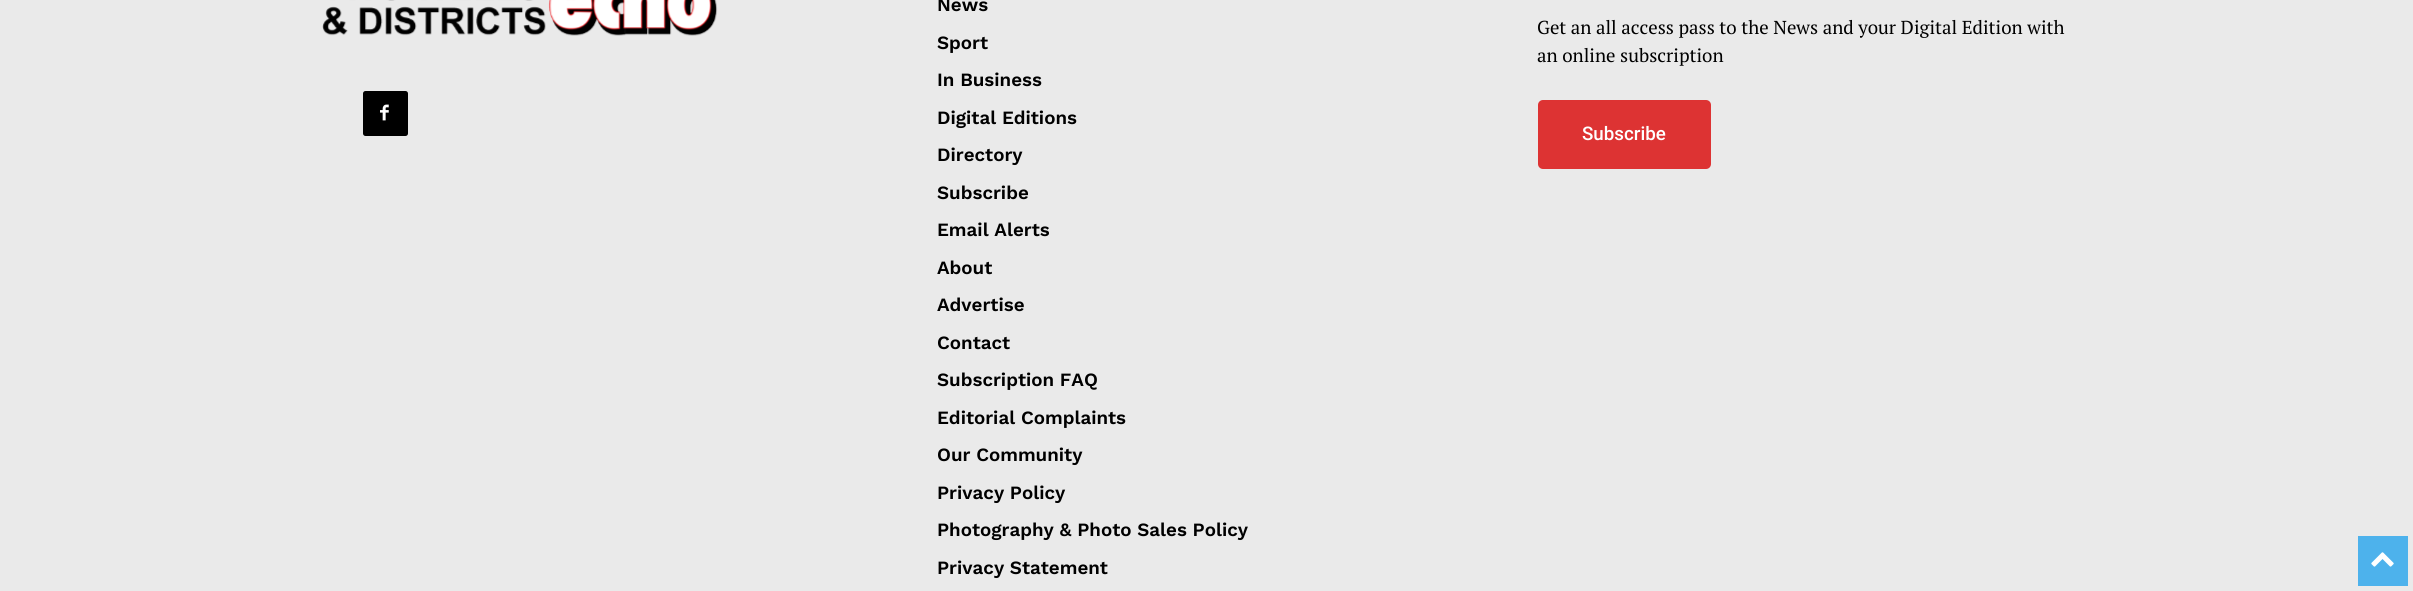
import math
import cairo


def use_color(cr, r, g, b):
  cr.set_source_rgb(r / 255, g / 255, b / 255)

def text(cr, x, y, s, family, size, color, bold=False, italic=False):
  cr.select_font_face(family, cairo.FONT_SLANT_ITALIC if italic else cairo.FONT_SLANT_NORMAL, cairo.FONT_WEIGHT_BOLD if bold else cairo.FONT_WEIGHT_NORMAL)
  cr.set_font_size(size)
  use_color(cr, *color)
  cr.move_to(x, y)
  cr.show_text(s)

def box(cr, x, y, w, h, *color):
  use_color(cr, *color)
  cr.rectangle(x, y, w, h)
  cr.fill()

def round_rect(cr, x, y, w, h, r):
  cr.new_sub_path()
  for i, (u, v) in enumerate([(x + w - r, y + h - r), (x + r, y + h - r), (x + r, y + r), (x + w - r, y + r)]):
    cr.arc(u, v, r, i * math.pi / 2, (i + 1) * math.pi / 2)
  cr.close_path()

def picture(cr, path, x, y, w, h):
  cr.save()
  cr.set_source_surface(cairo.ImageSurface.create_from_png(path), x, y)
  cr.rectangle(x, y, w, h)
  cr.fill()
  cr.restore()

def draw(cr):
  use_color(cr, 234, 234, 234)
  cr.paint()
  picture(cr, "img_01.png", 322, 0, 396, 36)
  use_color(cr, 0, 0, 0)
  round_rect(cr, 363, 91, 45, 45, 2.5)
  cr.fill()
  picture(cr, "img_02.png", 380, 104, 9, 17)
  use_color(cr, 221, 51, 51)
  round_rect(cr, 1538, 100, 173, 69, 5)
  cr.fill()
  box(cr, 2358, 536, 50, 50, 77, 178, 236)
  picture(cr, "img_03.png", 2371, 552, 23, 15)
  text(cr, 937, 11, "News", "Work Sans SemiBold", 18.75, (0, 0, 0))
  text(cr, 937, 49, "Sport", "Work Sans SemiBold", 18.75, (0, 0, 0))
  text(cr, 937, 86, "In Business", "Work Sans SemiBold", 18.75, (0, 0, 0))
  text(cr, 937, 124, "Digital Editions", "Work Sans SemiBold", 18.75, (0, 0, 0))
  text(cr, 937, 161, "Directory", "Work Sans SemiBold", 18.75, (0, 0, 0))
  text(cr, 937, 199, "Subscribe", "Work Sans SemiBold", 18.75, (0, 0, 0))
  text(cr, 937, 236, "Email Alerts", "Work Sans SemiBold", 18.75, (0, 0, 0))
  text(cr, 937, 274, "About", "Work Sans SemiBold", 18.75, (0, 0, 0))
  text(cr, 937, 311, "Advertise", "Work Sans SemiBold", 18.75, (0, 0, 0))
  text(cr, 937, 349, "Contact", "Work Sans SemiBold", 18.75, (0, 0, 0))
  text(cr, 937, 386, "Subscription FAQ", "Work Sans SemiBold", 18.75, (0, 0, 0))
  text(cr, 937, 424, "Editorial Complaints", "Work Sans SemiBold", 18.75, (0, 0, 0))
  text(cr, 937, 461, "Our Community", "Work Sans SemiBold", 18.75, (0, 0, 0))
  text(cr, 937, 499, "Privacy Policy", "Work Sans SemiBold", 18.75, (0, 0, 0))
  text(cr, 937, 536, "Photography & Photo Sales Policy", "Work Sans SemiBold", 18.75, (0, 0, 0))
  text(cr, 937, 574, "Privacy Statement", "Work Sans SemiBold", 18.75, (0, 0, 0))
  text(cr, 1537, 34, "Get an all access pass to the News and your Digital Edition with", "PT Serif", 18.75, (0, 0, 0))
  text(cr, 1537, 62, "an online subscription", "PT Serif", 18.75, (0, 0, 0))
  text(cr, 1582, 140, "Subscribe", "Roboto Medium", 18.75, (255, 255, 255))


surface = cairo.ImageSurface(cairo.FORMAT_RGB24, 2413, 591)
cr = cairo.Context(surface)
options = cairo.FontOptions()
options.set_hint_metrics(cairo.HINT_METRICS_OFF)
options.set_hint_style(cairo.HINT_STYLE_NONE)
cr.set_font_options(options)
cr.set_miter_limit(4)
draw(cr)
surface.write_to_png("out.png")
